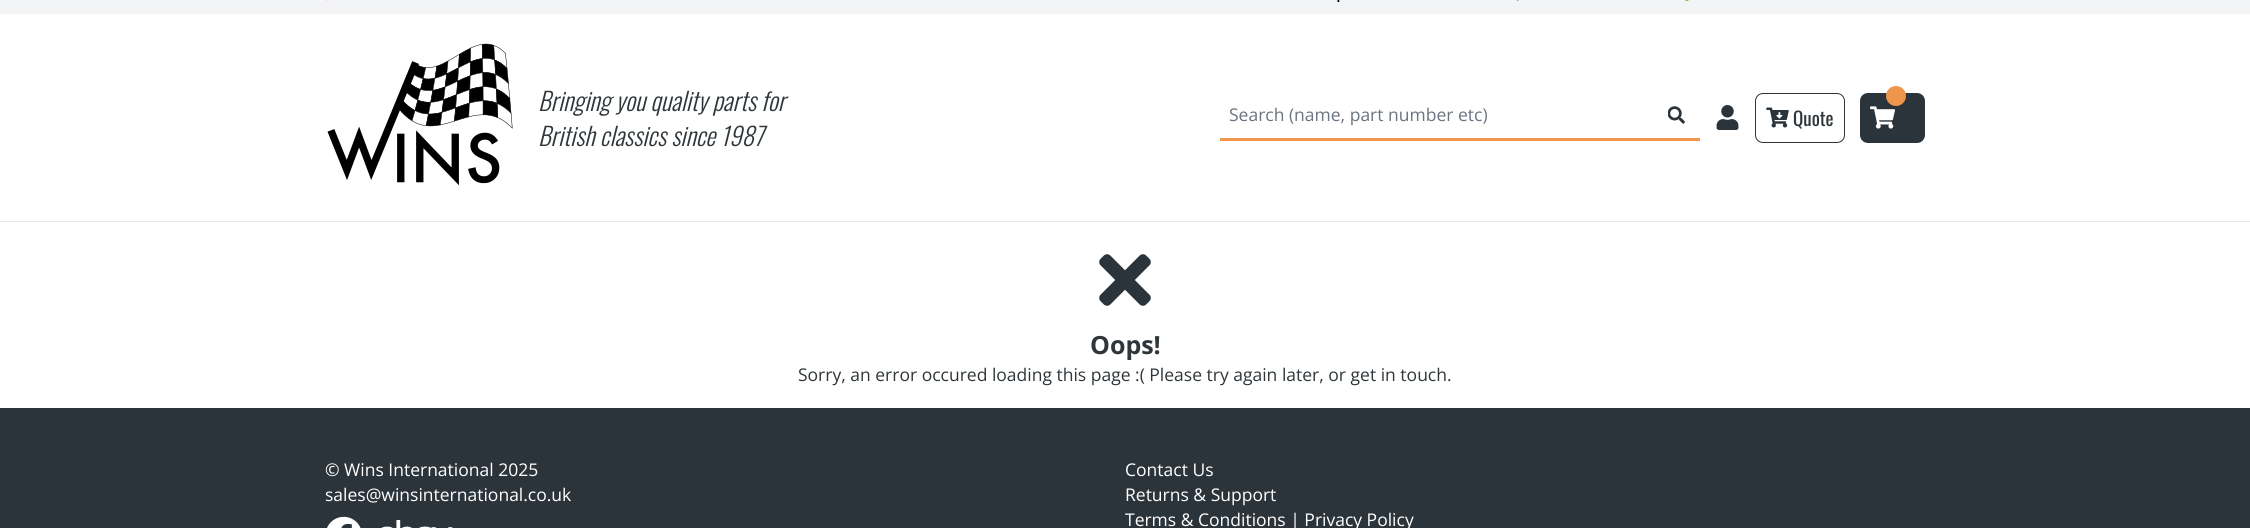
import math
import cairo


def use_color(cr, r, g, b):
  cr.set_source_rgb(r / 255, g / 255, b / 255)

def text(cr, x, y, s, family, size, color, bold=False, italic=False):
  cr.select_font_face(family, cairo.FONT_SLANT_ITALIC if italic else cairo.FONT_SLANT_NORMAL, cairo.FONT_WEIGHT_BOLD if bold else cairo.FONT_WEIGHT_NORMAL)
  cr.set_font_size(size)
  use_color(cr, *color)
  cr.move_to(x, y)
  cr.show_text(s)

def box(cr, x, y, w, h, *color):
  use_color(cr, *color)
  cr.rectangle(x, y, w, h)
  cr.fill()

def round_rect(cr, x, y, w, h, r):
  cr.new_sub_path()
  for i, (u, v) in enumerate([(x + w - r, y + h - r), (x + r, y + h - r), (x + r, y + r), (x + w - r, y + r)]):
    cr.arc(u, v, r, i * math.pi / 2, (i + 1) * math.pi / 2)
  cr.close_path()

def picture(cr, path, x, y, w, h):
  cr.save()
  cr.set_source_surface(cairo.ImageSurface.create_from_png(path), x, y)
  cr.rectangle(x, y, w, h)
  cr.fill()
  cr.restore()

def draw(cr):
  use_color(cr, 255, 255, 255)
  cr.paint()
  box(cr, 0, 0, 2250, 14, 243, 244, 246)
  picture(cr, "img_01.png", 326, 0, 3, 1)
  picture(cr, "img_02.png", 1282, 0, 58, 2)
  picture(cr, "img_03.png", 1517, 0, 2, 1)
  picture(cr, "img_04.png", 1685, 0, 4, 1)
  box(cr, 0, 221, 2250, 1, 229, 231, 235)
  picture(cr, "img_05.png", 327, 43, 186, 143)
  box(cr, 1220, 138, 480, 3, 238, 150, 75)
  picture(cr, "img_06.png", 1668, 106, 17, 18)
  picture(cr, "img_07.png", 1716, 105, 23, 25)
  round_rect(cr, 1755.5, 93.5, 89, 49, 7.5)
  use_color(cr, 44, 52, 59)
  cr.set_line_width(1)
  cr.stroke()
  picture(cr, "img_08.png", 1766, 107, 23, 21)
  round_rect(cr, 1860, 93, 65, 50, 8)
  cr.fill()
  use_color(cr, 238, 150, 75)
  cr.arc(1896, 96, 10, 0, 2 * math.pi)
  cr.fill()
  picture(cr, "img_09.png", 1870, 106, 25, 23)
  picture(cr, "img_10.png", 1099, 254, 52, 52)
  box(cr, 0, 408, 2250, 120, 44, 52, 59)
  picture(cr, "img_11.png", 327, 516, 34, 12)
  picture(cr, "img_12.png", 381, 520, 72, 8)
  text(cr, 538, 111, "Bringing you quality parts for", "Oswald Light", 25, (47, 54, 58), italic=True)
  text(cr, 538, 146, "British classics since 1987", "Oswald Light", 25, (47, 54, 58), italic=True)
  text(cr, 1229, 121, "Search (name, part number etc)", "Open Sans", 17.5, (107, 114, 128))
  text(cr, 1793, 126, "Quote", "Oswald", 19, (47, 54, 58))
  text(cr, 1090, 354, "Oops!", "Open Sans", 25, (47, 54, 58), bold=True)
  text(cr, 798, 381, "Sorry, an error occured loading this page :( Please try again later, or get in touch.", "Open Sans", 17.5, (47, 54, 58))
  text(cr, 325, 476, "© Wins International 2025", "Open Sans", 17.5, (255, 255, 255))
  text(cr, 325, 501, "sales@winsinternational.co.uk", "Open Sans", 17.5, (255, 255, 255))
  text(cr, 1125, 476, "Contact Us", "Open Sans", 17.5, (255, 255, 255))
  text(cr, 1125, 501, "Returns & Support", "Open Sans", 17.5, (255, 255, 255))
  text(cr, 1125, 526, "Terms & Conditions | Privacy Policy", "Open Sans", 17.5, (255, 255, 255))


surface = cairo.ImageSurface(cairo.FORMAT_RGB24, 2250, 528)
cr = cairo.Context(surface)
options = cairo.FontOptions()
options.set_hint_metrics(cairo.HINT_METRICS_OFF)
options.set_hint_style(cairo.HINT_STYLE_NONE)
cr.set_font_options(options)
cr.set_miter_limit(4)
draw(cr)
surface.write_to_png("out.png")
